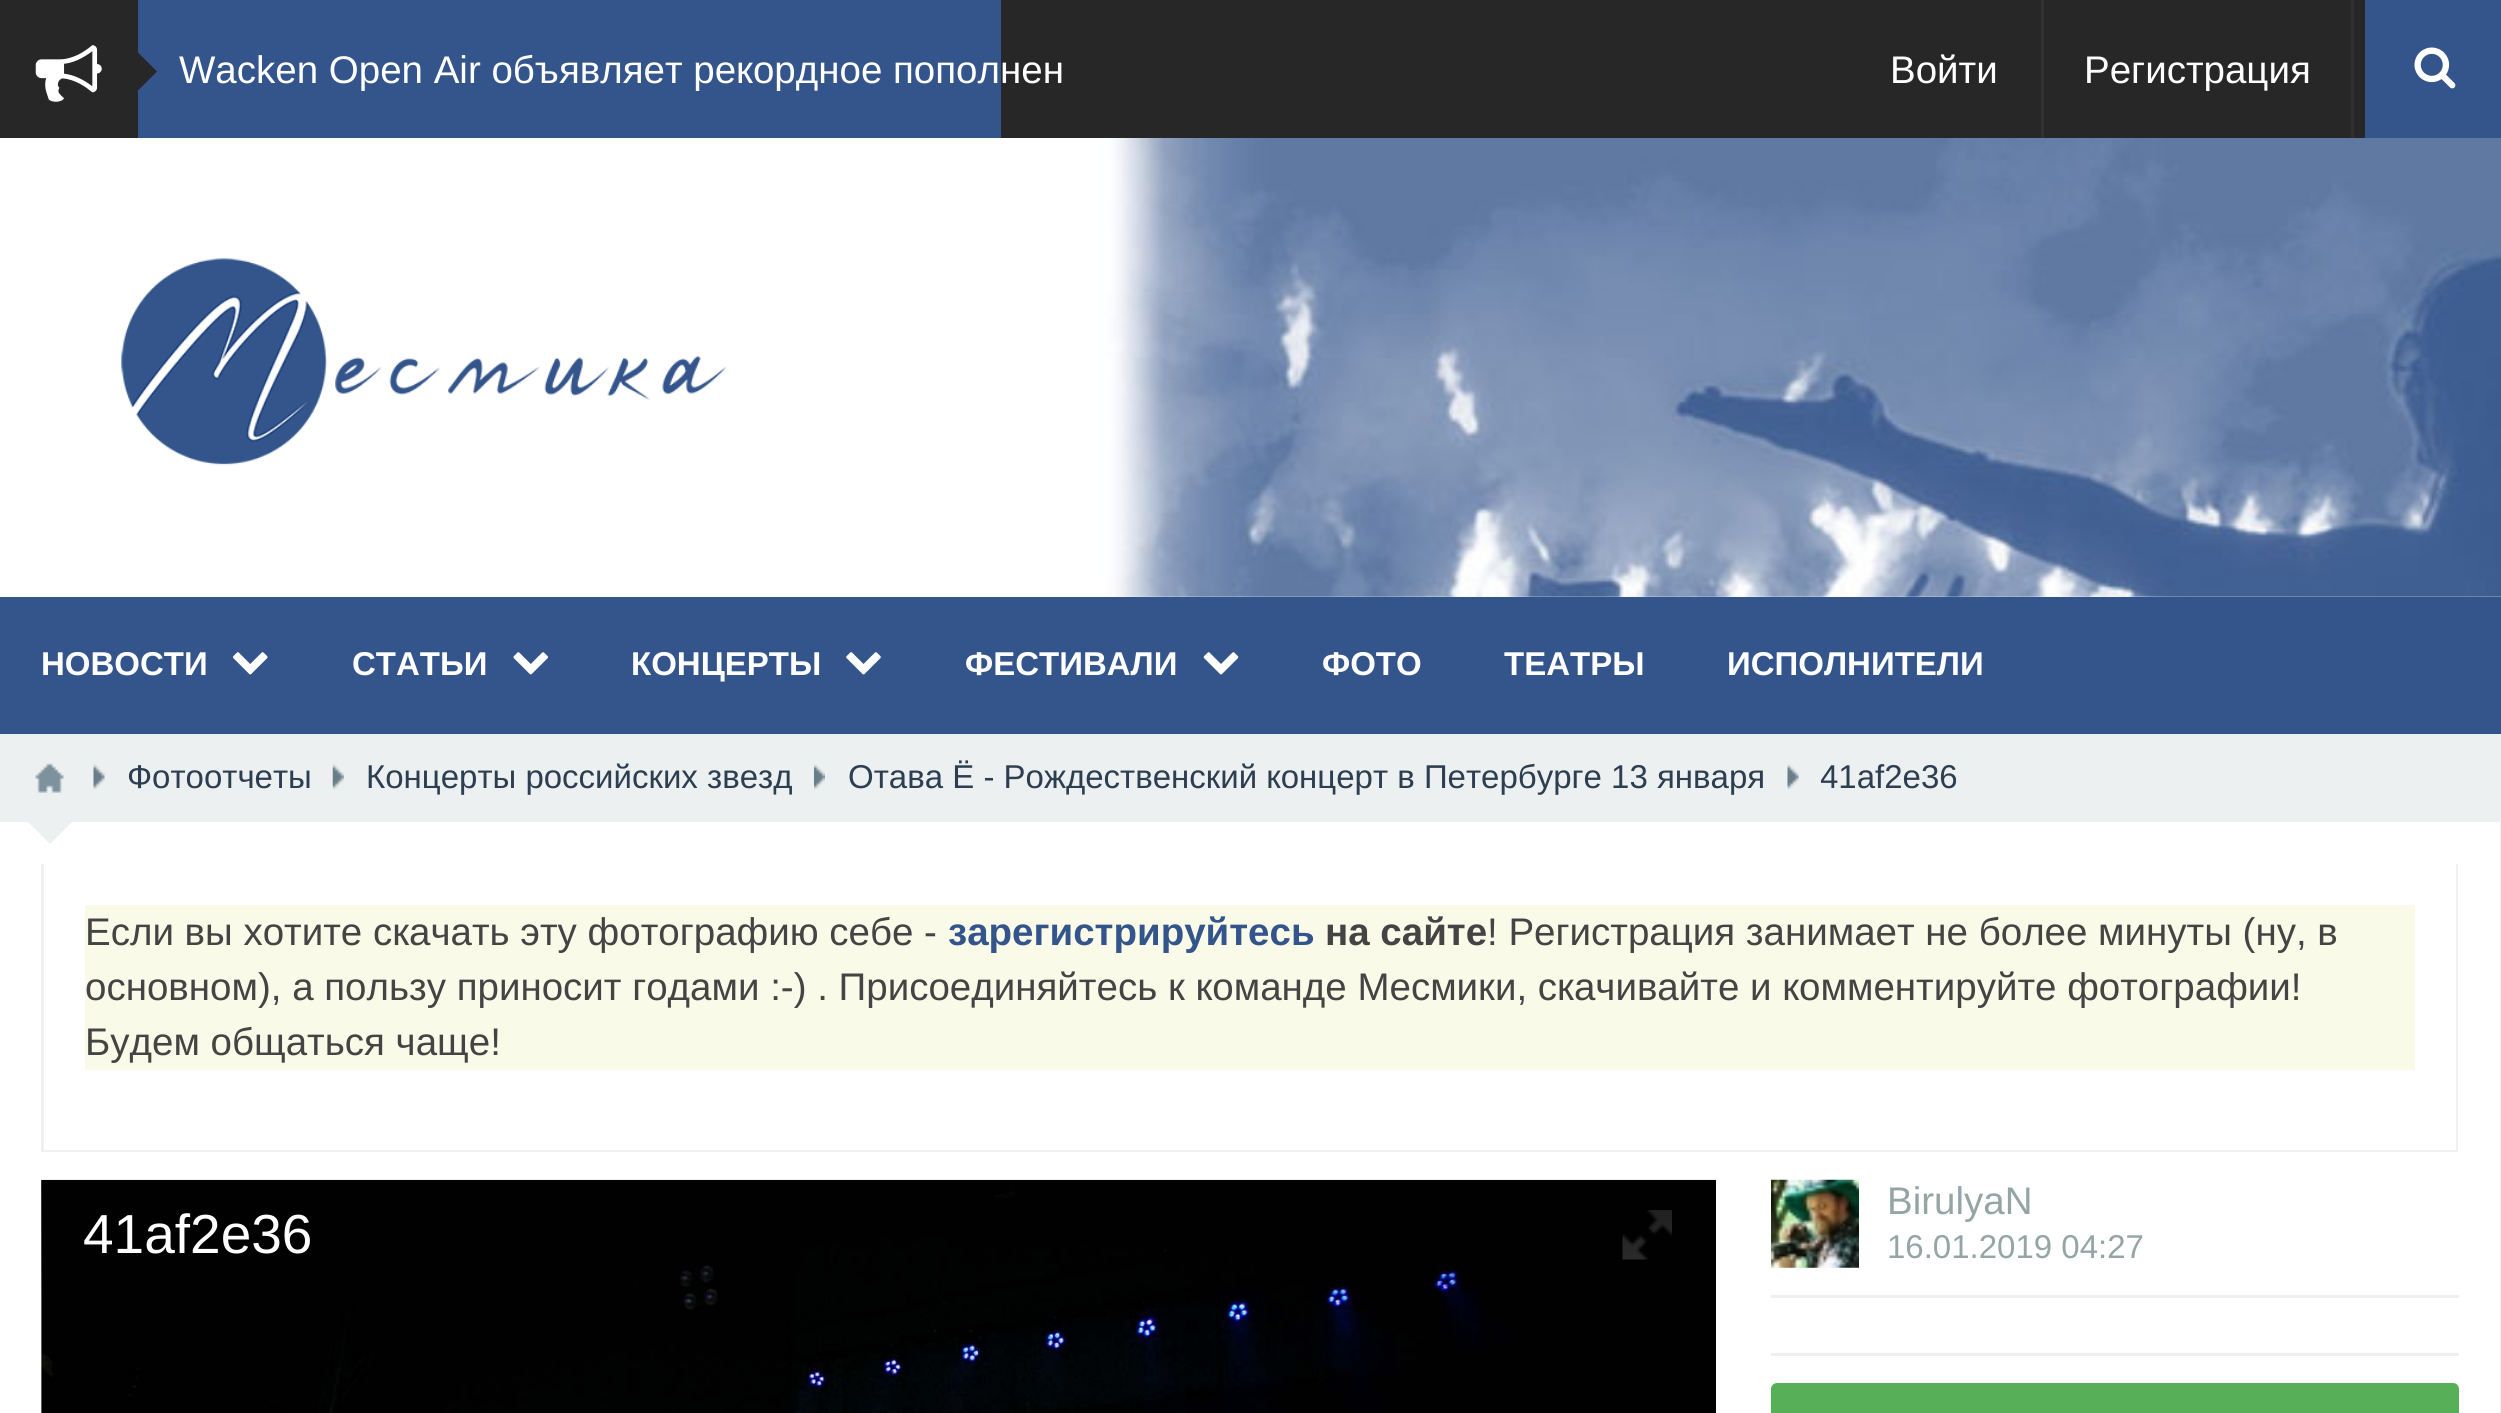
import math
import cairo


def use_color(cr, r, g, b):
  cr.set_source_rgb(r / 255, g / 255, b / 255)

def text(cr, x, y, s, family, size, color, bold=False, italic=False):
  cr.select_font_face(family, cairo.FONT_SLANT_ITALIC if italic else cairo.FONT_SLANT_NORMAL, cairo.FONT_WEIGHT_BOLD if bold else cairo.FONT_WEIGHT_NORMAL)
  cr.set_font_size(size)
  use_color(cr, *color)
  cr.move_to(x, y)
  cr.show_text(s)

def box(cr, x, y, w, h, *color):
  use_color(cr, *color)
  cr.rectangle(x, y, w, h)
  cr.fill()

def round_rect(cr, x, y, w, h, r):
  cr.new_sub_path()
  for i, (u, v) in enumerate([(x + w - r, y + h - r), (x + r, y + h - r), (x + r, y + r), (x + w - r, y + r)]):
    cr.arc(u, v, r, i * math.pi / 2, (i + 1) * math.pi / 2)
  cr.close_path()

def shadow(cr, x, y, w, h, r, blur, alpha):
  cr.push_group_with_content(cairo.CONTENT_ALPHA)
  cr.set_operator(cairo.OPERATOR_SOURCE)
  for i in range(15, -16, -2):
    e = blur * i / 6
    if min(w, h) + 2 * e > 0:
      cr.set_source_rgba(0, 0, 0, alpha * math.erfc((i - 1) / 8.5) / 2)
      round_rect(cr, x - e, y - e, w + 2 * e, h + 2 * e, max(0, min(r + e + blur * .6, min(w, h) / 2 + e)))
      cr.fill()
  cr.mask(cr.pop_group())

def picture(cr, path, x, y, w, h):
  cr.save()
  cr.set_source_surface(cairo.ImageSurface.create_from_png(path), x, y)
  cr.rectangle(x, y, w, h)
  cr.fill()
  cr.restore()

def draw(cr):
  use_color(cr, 255, 255, 255)
  cr.paint()
  box(cr, 1001, 0, 1364, 138, 39, 39, 39)
  box(cr, 138, 0, 863, 138, 52, 85, 139)
  box(cr, 0, 0, 138, 138, 39, 39, 39)
  picture(cr, "img_01.png", 35, 45, 67, 57)
  cr.new_path()
  cr.move_to(137.5, 91)
  cr.line_to(137.5, 52)
  cr.line_to(157, 71.5)
  cr.close_path()
  cr.fill()
  box(cr, 2041, 0, 3, 138, 49, 49, 49)
  box(cr, 2351, 0, 3, 138, 49, 49, 49)
  box(cr, 2365, 0, 136, 138, 52, 85, 139)
  picture(cr, "img_02.png", 2414, 47, 42, 42)
  picture(cr, "img_03.png", 0, 138, 2501, 459)
  picture(cr, "img_04.png", 120, 258, 607, 207)
  box(cr, 0, 597, 2501, 137, 52, 85, 139)
  picture(cr, "img_05.png", 233, 652, 35, 23)
  picture(cr, "img_06.png", 513, 652, 35, 23)
  picture(cr, "img_07.png", 846, 652, 35, 23)
  picture(cr, "img_08.png", 1203, 652, 36, 23)
  box(cr, 0, 734, 2501, 88, 236, 240, 241)
  picture(cr, "img_09.png", 35, 763, 30, 30)
  picture(cr, "img_10.png", 93, 764, 12, 26)
  picture(cr, "img_11.png", 332, 764, 12, 26)
  picture(cr, "img_12.png", 814, 764, 11, 26)
  picture(cr, "img_10.png", 1787, 764, 12, 26)
  cr.new_path()
  cr.move_to(28, 822)
  cr.line_to(72, 822)
  cr.line_to(50, 844)
  cr.close_path()
  cr.fill()
  box(cr, 2500, 822, 1, 591, 238, 238, 238)
  use_color(cr, 240, 240, 240)
  cr.new_path()
  cr.move_to(2458, 864)
  cr.line_to(2458, 1152)
  cr.line_to(2456, 1150)
  cr.line_to(2456, 864)
  cr.close_path()
  cr.fill()
  cr.set_source_rgba(0, 0, 0, 0.06)
  cr.new_path()
  cr.move_to(2458, 1152)
  cr.line_to(41, 1152)
  cr.line_to(44, 1150)
  cr.line_to(2456, 1150)
  cr.close_path()
  cr.fill()
  cr.new_path()
  cr.move_to(41, 1152)
  cr.line_to(41, 864)
  cr.line_to(44, 864)
  cr.line_to(44, 1150)
  cr.close_path()
  cr.fill()
  box(cr, 85, 905, 2330, 165, 250, 250, 232)
  cr.save()
  cr.rectangle(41, 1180, 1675, 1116)
  cr.clip()
  use_color(cr, 0, 0, 30)
  shadow(cr, 41, 1183, 1675, 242, 0, 4, 0.3)
  cr.restore()
  picture(cr, "img_13.png", 41, 1179, 1675, 234)
  picture(cr, "img_14.png", 1622, 1210, 50, 50)
  gradient = cairo.LinearGradient(879, 1180, 879, 1306)
  gradient.add_color_stop_rgba(0, 0, 0, 0, 0.5)
  gradient.add_color_stop_rgba(1, 0, 0, 0, 0)
  cr.set_source(gradient)
  cr.rectangle(41, 1180, 1631, 121)
  cr.fill()
  picture(cr, "img_15.png", 1771, 1179, 88, 89)
  box(cr, 1771, 1295, 688, 3, 238, 239, 242)
  box(cr, 1771, 1353, 688, 3, 238, 239, 242)
  use_color(cr, 87, 176, 87)
  round_rect(cr, 1771, 1383, 688, 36, 6)
  cr.fill()
  text(cr, 179, 83, "Wacken Open Air объявляет рекордное пополнен", "Liberation Sans", 38.5, (255, 255, 255))
  text(cr, 1890, 83, "Войти", "Liberation Sans", 38.5, (255, 255, 255))
  text(cr, 2084, 83, "Регистрация", "Liberation Sans", 38.5, (255, 255, 255))
  text(cr, 41, 675, "НОВОСТИ", "Liberation Sans", 33, (255, 255, 255), bold=True)
  text(cr, 352, 675, "СТАТЬИ", "Liberation Sans", 33, (255, 255, 255), bold=True)
  text(cr, 631, 675, "КОНЦЕРТЫ", "Liberation Sans", 33, (255, 255, 255), bold=True)
  text(cr, 965, 675, "ФЕСТИВАЛИ", "Liberation Sans", 33, (255, 255, 255), bold=True)
  text(cr, 1322, 675, "ФОТО", "Liberation Sans", 33, (255, 255, 255), bold=True)
  text(cr, 1504, 675, "ТЕАТРЫ", "Liberation Sans", 33, (255, 255, 255), bold=True)
  text(cr, 1727, 675, "ИСПОЛНИТЕЛИ", "Liberation Sans", 33, (255, 255, 255), bold=True)
  text(cr, 127, 788, "Фотоотчеты", "Liberation Sans", 33, (44, 62, 80))
  cr.save()
  cr.rectangle(366, 734, 426, 88)
  cr.clip()
  text(cr, 366, 788, "Концерты российских звезд", "Liberation Sans", 33, (44, 62, 80))
  cr.restore()
  text(cr, 848, 788, "Отава Ё - Рождественский концерт в Петербурге 13 января", "Liberation Sans", 33, (44, 62, 80))
  cr.save()
  cr.rectangle(1821, 734, 137, 88)
  cr.clip()
  text(cr, 1820, 788, "41af2e36", "Liberation Sans", 33, (44, 62, 80))
  cr.restore()
  text(cr, 85, 945, "Если вы хотите скачать эту фотографию себе -", "Liberation Sans", 38.5, (68, 68, 68))
  text(cr, 948, 945, "зарегистрируйтесь", "Liberation Sans", 38.5, (52, 85, 139), bold=True)
  text(cr, 1325, 945, "на сайте", "Liberation Sans", 38.5, (68, 68, 68), bold=True)
  text(cr, 1487, 945, "! Регистрация занимает не более минуты (ну, в", "Liberation Sans", 38.5, (68, 68, 68))
  text(cr, 85, 1000, "основном), а пользу приносит годами :-) . Присоединяйтесь к команде Месмики, скачивайте и комментируйте фотографии!", "Liberation Sans", 38.5, (68, 68, 68))
  text(cr, 85, 1055, "Будем общаться чаще!", "Liberation Sans", 38.5, (68, 68, 68))
  text(cr, 83, 1253, "41af2e36", "Liberation Sans", 55, (255, 255, 255))
  text(cr, 1887, 1214, "BirulyaN", "Liberation Sans", 38.5, (149, 165, 166))
  text(cr, 1887, 1258, "16.01.2019 04:27", "Liberation Sans", 33, (149, 165, 166))


surface = cairo.ImageSurface(cairo.FORMAT_RGB24, 2501, 1413)
cr = cairo.Context(surface)
options = cairo.FontOptions()
options.set_hint_metrics(cairo.HINT_METRICS_OFF)
options.set_hint_style(cairo.HINT_STYLE_NONE)
cr.set_font_options(options)
cr.set_miter_limit(4)
draw(cr)
surface.write_to_png("out.png")
